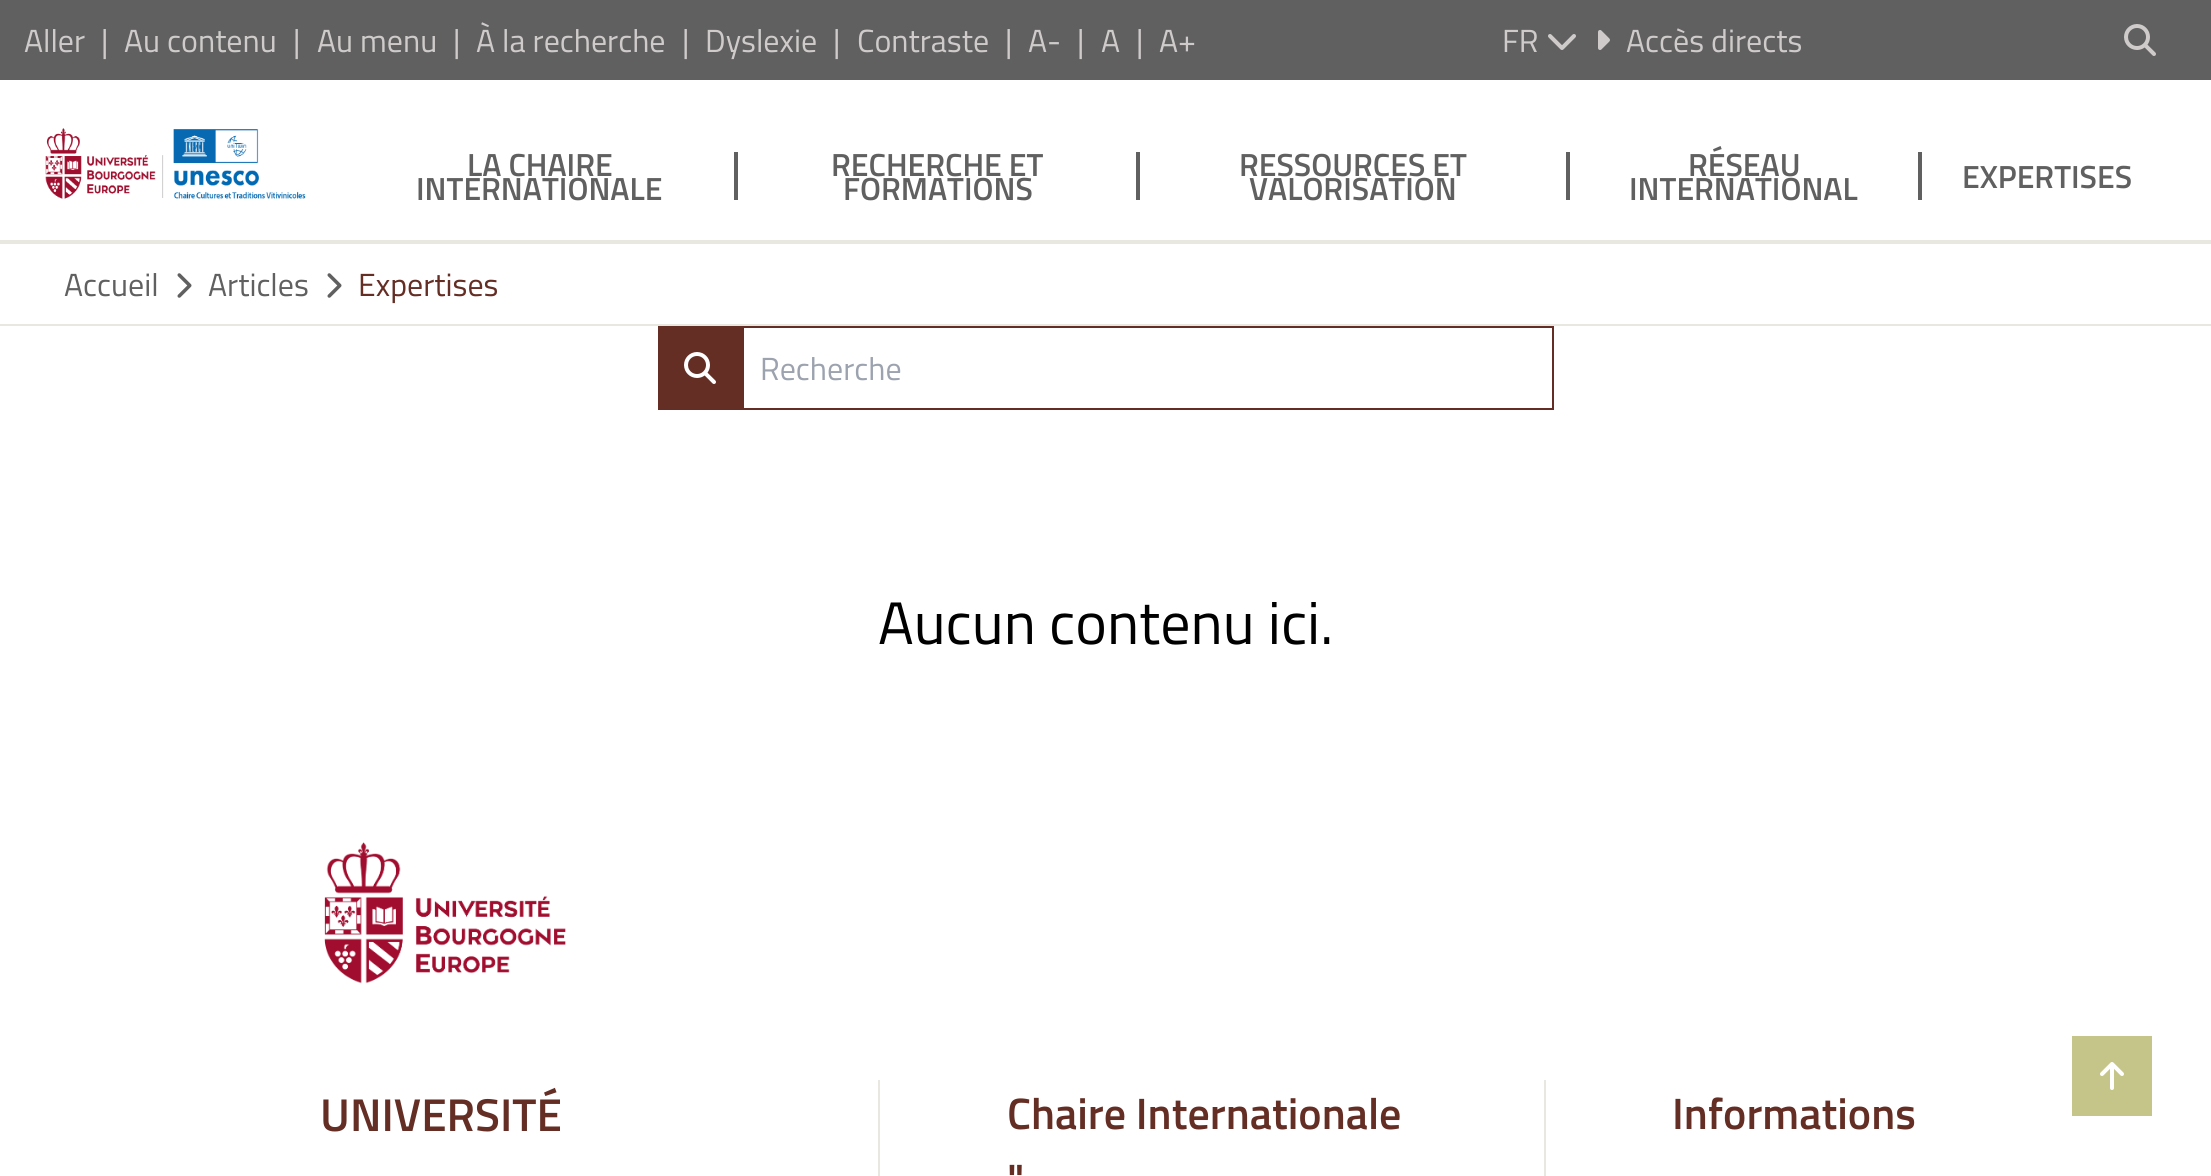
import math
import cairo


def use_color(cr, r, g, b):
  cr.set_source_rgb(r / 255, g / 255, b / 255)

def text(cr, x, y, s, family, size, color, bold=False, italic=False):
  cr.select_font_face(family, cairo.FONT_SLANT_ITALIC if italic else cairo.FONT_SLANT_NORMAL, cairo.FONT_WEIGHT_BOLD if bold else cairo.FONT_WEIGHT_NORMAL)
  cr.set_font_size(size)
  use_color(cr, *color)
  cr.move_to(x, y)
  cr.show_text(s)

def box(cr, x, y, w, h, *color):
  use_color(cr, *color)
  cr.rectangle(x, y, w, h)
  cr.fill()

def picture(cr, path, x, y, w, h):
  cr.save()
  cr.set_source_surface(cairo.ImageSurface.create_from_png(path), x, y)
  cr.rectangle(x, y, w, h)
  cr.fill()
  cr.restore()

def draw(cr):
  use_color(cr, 255, 255, 255)
  cr.paint()
  box(cr, 0, 0, 2211, 80, 96, 96, 96)
  picture(cr, "img_01.png", 1548, 34, 28, 16)
  picture(cr, "img_02.png", 1598, 30, 12, 20)
  picture(cr, "img_03.png", 2124, 24, 32, 32)
  box(cr, 0, 240, 2211, 4, 233, 232, 224)
  picture(cr, "img_04.png", 45, 128, 261, 71)
  box(cr, 734, 152, 4, 48, 96, 96, 96)
  box(cr, 1136, 152, 4, 48, 96, 96, 96)
  box(cr, 1566, 152, 4, 48, 96, 96, 96)
  box(cr, 1918, 152, 4, 48, 96, 96, 96)
  box(cr, 0, 324, 2211, 2, 233, 232, 224)
  picture(cr, "img_05.png", 177, 273, 15, 25)
  picture(cr, "img_05.png", 327, 273, 15, 25)
  box(cr, 658, 326, 84, 84, 100, 46, 37)
  picture(cr, "img_06.png", 684, 352, 32, 32)
  cr.rectangle(743, 327, 810, 82)
  cr.stroke()
  box(cr, 2072, 1036, 80, 80, 197, 196, 137)
  picture(cr, "img_07.png", 2100, 1062, 24, 28)
  picture(cr, "img_08.png", 324, 842, 242, 142)
  box(cr, 878, 1080, 2, 96, 233, 232, 224)
  box(cr, 1544, 1080, 2, 96, 233, 232, 224)
  text(cr, 24, 52, "Aller", "Titillium Web", 32, (207, 203, 203))
  text(cr, 101, 52, "|", "Titillium Web", 32, (207, 203, 203))
  text(cr, 124, 52, "Au contenu", "Titillium Web", 32, (207, 203, 203))
  text(cr, 293, 52, "|", "Titillium Web", 32, (207, 203, 203))
  text(cr, 317, 52, "Au menu", "Titillium Web", 32, (207, 203, 203))
  text(cr, 453, 52, "|", "Titillium Web", 32, (207, 203, 203))
  text(cr, 476, 52, "À la recherche", "Titillium Web", 32, (207, 203, 203))
  text(cr, 682, 52, "|", "Titillium Web", 32, (207, 203, 203))
  text(cr, 705, 52, "Dyslexie", "Titillium Web", 32, (207, 203, 203))
  text(cr, 833, 52, "|", "Titillium Web", 32, (207, 203, 203))
  text(cr, 857, 52, "Contraste", "Titillium Web", 32, (207, 203, 203))
  text(cr, 1005, 52, "|", "Titillium Web", 32, (207, 203, 203))
  text(cr, 1028, 52, "A-", "Titillium Web", 32, (207, 203, 203))
  text(cr, 1077, 52, "|", "Titillium Web", 32, (207, 203, 203))
  text(cr, 1101, 52, "A", "Titillium Web", 32, (207, 203, 203))
  text(cr, 1136, 52, "|", "Titillium Web", 32, (207, 203, 203))
  text(cr, 1159, 52, "A+", "Titillium Web", 32, (207, 203, 203))
  text(cr, 1502, 52, "FR", "Titillium Web", 32, (207, 203, 203))
  text(cr, 1626, 52, "Accès directs", "Titillium Web", 32, (207, 203, 203))
  text(cr, 467, 176, "LA CHAIRE", "Titillium Web SemiBold", 32, (96, 96, 96))
  text(cr, 416, 200, "INTERNATIONALE", "Titillium Web SemiBold", 32, (96, 96, 96))
  text(cr, 831, 176, "RECHERCHE ET", "Titillium Web SemiBold", 32, (96, 96, 96))
  text(cr, 843, 200, "FORMATIONS", "Titillium Web SemiBold", 32, (96, 96, 96))
  text(cr, 1239, 176, "RESSOURCES ET", "Titillium Web SemiBold", 32, (96, 96, 96))
  text(cr, 1249, 200, "VALORISATION", "Titillium Web SemiBold", 32, (96, 96, 96))
  text(cr, 1688, 176, "RÉSEAU", "Titillium Web SemiBold", 32, (96, 96, 96))
  text(cr, 1629, 200, "INTERNATIONAL", "Titillium Web SemiBold", 32, (96, 96, 96))
  text(cr, 1962, 188, "EXPERTISES", "Titillium Web SemiBold", 32, (96, 96, 96))
  text(cr, 64, 296, "Accueil", "Titillium Web", 32, (96, 96, 96))
  text(cr, 208, 296, "Articles", "Titillium Web", 32, (96, 96, 96))
  text(cr, 358, 296, "Expertises", "Titillium Web", 32, (100, 46, 37))
  text(cr, 760, 380, "Recherche", "Titillium Web", 32, (156, 163, 175))
  text(cr, 878, 644, "Aucun contenu ici.", "Titillium Web", 60, (0, 0, 0))
  text(cr, 320, 1131, "UNIVERSITÉ", "Titillium Web SemiBold", 46, (100, 46, 37))
  text(cr, 1007, 1129, "Chaire Internationale", "Titillium Web SemiBold", 44, (100, 46, 37))
  text(cr, 1007, 1195, "\"", "Titillium Web SemiBold", 44, (100, 46, 37))
  text(cr, 1672, 1129, "Informations", "Titillium Web SemiBold", 44, (100, 46, 37))


surface = cairo.ImageSurface(cairo.FORMAT_RGB24, 2211, 1176)
cr = cairo.Context(surface)
options = cairo.FontOptions()
options.set_hint_metrics(cairo.HINT_METRICS_OFF)
options.set_hint_style(cairo.HINT_STYLE_NONE)
cr.set_font_options(options)
cr.set_miter_limit(4)
draw(cr)
surface.write_to_png("out.png")
